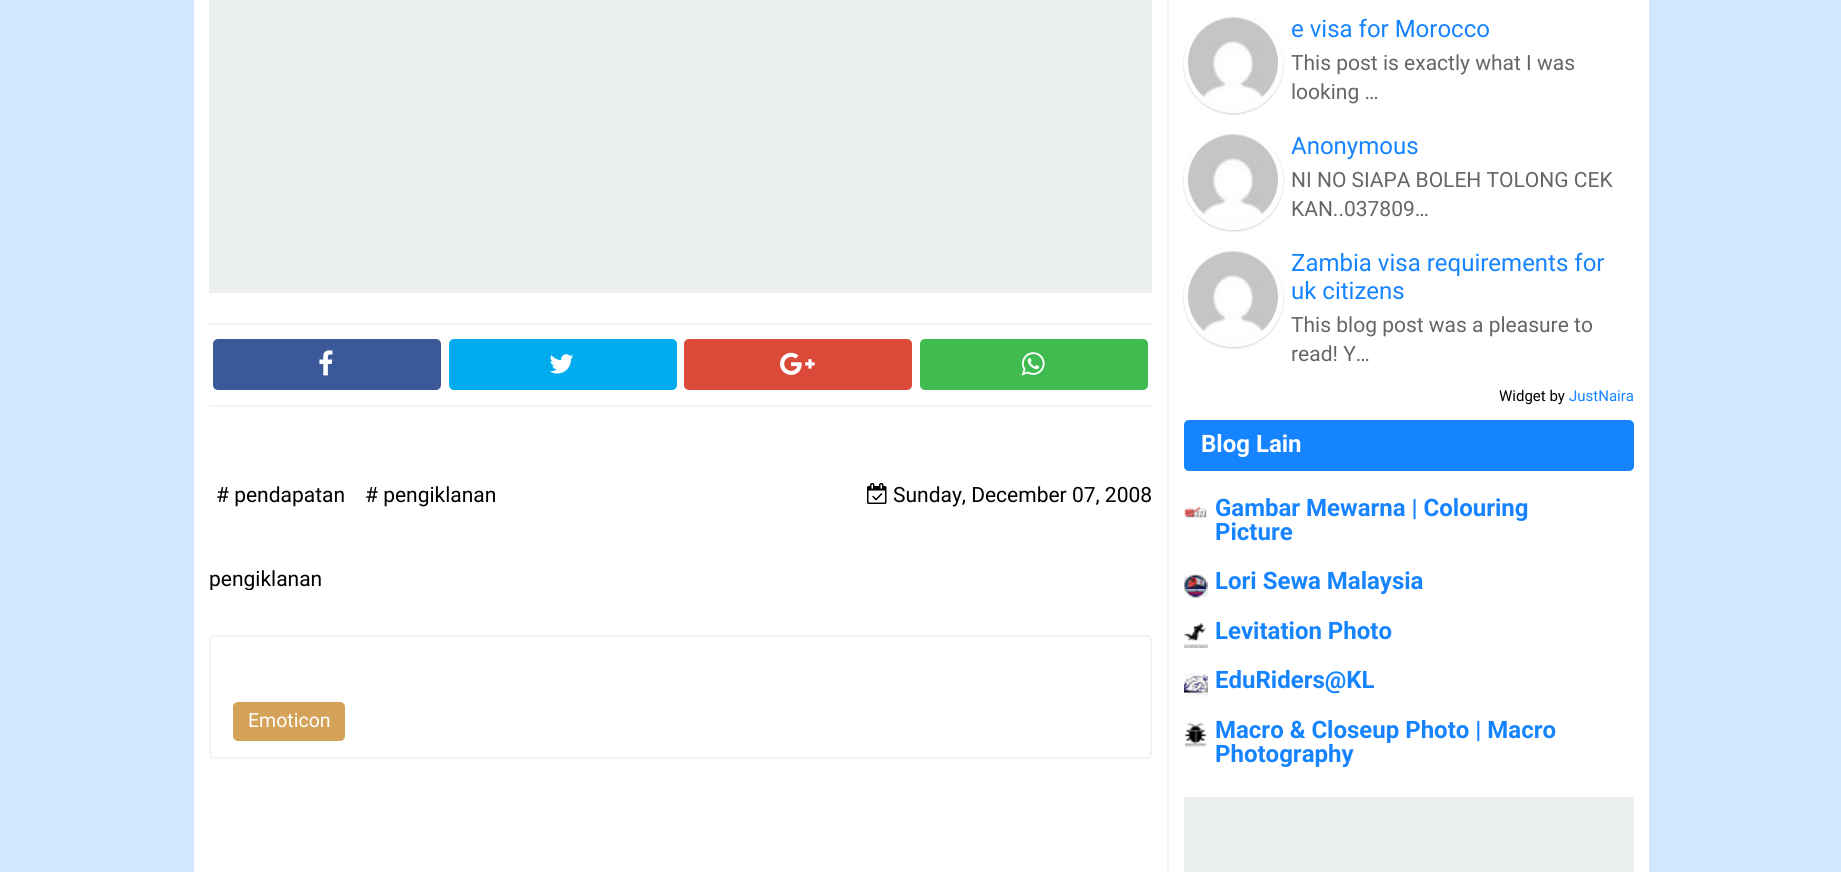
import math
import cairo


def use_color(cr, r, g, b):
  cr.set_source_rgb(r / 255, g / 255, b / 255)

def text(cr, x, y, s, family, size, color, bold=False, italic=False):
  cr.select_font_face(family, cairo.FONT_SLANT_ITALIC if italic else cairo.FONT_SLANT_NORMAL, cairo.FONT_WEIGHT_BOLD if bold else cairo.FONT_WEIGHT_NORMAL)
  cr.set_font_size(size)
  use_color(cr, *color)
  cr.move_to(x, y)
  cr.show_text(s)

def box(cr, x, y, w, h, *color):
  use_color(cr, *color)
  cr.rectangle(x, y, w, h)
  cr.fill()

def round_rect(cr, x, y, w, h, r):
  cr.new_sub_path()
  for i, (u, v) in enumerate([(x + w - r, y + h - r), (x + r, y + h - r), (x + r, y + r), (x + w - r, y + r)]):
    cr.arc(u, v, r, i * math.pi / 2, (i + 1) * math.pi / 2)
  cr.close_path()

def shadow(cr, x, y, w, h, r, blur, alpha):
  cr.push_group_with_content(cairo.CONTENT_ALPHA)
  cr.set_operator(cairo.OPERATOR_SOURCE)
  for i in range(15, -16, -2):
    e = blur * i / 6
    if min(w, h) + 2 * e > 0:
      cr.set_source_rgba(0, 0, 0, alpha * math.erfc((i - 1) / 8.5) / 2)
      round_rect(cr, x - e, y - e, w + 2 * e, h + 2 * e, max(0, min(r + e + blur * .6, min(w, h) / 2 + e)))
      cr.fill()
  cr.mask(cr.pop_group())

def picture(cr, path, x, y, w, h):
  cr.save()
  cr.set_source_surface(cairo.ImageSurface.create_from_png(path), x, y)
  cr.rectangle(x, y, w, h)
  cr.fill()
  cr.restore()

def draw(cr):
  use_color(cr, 211, 230, 255)
  cr.paint()
  box(cr, 194, 0, 1455, 872, 255, 255, 255)
  box(cr, 1167, 0, 2, 872, 242, 242, 242)
  box(cr, 209, 0, 943, 293, 236, 240, 241)
  box(cr, 209, 323, 943, 2, 242, 242, 242)
  box(cr, 209, 405, 943, 2, 242, 242, 242)
  use_color(cr, 59, 89, 153)
  round_rect(cr, 213, 339, 228, 51, 5)
  cr.fill()
  picture(cr, "img_01.png", 319, 350, 14, 26)
  use_color(cr, 0, 172, 238)
  round_rect(cr, 449, 339, 228, 51, 5)
  cr.fill()
  picture(cr, "img_02.png", 549, 354, 25, 20)
  use_color(cr, 219, 74, 57)
  round_rect(cr, 684, 339, 228, 51, 5)
  cr.fill()
  picture(cr, "img_03.png", 780, 352, 35, 23)
  use_color(cr, 63, 187, 80)
  round_rect(cr, 920, 339, 228, 51, 5)
  cr.fill()
  picture(cr, "img_04.png", 1021, 352, 24, 24)
  picture(cr, "img_05.png", 867, 483, 20, 21)
  round_rect(cr, 210, 636, 941, 122, 4)
  use_color(cr, 242, 242, 242)
  cr.stroke()
  use_color(cr, 212, 162, 88)
  round_rect(cr, 233, 702, 112, 39, 5)
  cr.fill()
  cr.save()
  cr.set_fill_rule(cairo.FILL_RULE_EVEN_ODD)
  cr.new_path()
  cr.move_to(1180, 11)
  cr.line_to(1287, 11)
  cr.line_to(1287, 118)
  cr.line_to(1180, 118)
  cr.close_path()
  cr.move_to(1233.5, 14)
  cr.curve_to(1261, 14, 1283, 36, 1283, 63.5)
  cr.curve_to(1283, 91, 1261, 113, 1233.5, 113)
  cr.curve_to(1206, 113, 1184, 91, 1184, 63.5)
  cr.curve_to(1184, 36, 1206, 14, 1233.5, 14)
  cr.close_path()
  cr.clip()
  use_color(cr, 204, 204, 204)
  shadow(cr, 1184, 15, 99, 99, 49.5, 1, 1)
  cr.restore()
  use_color(cr, 254, 254, 254)
  cr.arc(1233.5, 63.5, 49.5, 0, 2 * math.pi)
  cr.fill()
  picture(cr, "img_06.png", 1188, 17, 90, 81)
  cr.save()
  cr.set_fill_rule(cairo.FILL_RULE_EVEN_ODD)
  cr.new_path()
  cr.move_to(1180, 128)
  cr.line_to(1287, 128)
  cr.line_to(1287, 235)
  cr.line_to(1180, 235)
  cr.close_path()
  cr.move_to(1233.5, 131)
  cr.curve_to(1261, 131, 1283, 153, 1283, 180.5)
  cr.curve_to(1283, 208, 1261, 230, 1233.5, 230)
  cr.curve_to(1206, 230, 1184, 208, 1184, 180.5)
  cr.curve_to(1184, 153, 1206, 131, 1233.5, 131)
  cr.close_path()
  cr.clip()
  use_color(cr, 204, 204, 204)
  shadow(cr, 1184, 132, 99, 99, 49.5, 1, 1)
  cr.restore()
  cr.arc(1233.5, 180.5, 49.5, 0, 2 * math.pi)
  cr.fill()
  picture(cr, "img_06.png", 1188, 134, 90, 81)
  cr.save()
  cr.set_fill_rule(cairo.FILL_RULE_EVEN_ODD)
  cr.new_path()
  cr.move_to(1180, 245)
  cr.line_to(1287, 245)
  cr.line_to(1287, 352)
  cr.line_to(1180, 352)
  cr.close_path()
  cr.move_to(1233.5, 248)
  cr.curve_to(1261, 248, 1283, 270, 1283, 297.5)
  cr.curve_to(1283, 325, 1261, 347, 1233.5, 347)
  cr.curve_to(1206, 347, 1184, 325, 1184, 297.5)
  cr.curve_to(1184, 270, 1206, 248, 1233.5, 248)
  cr.close_path()
  cr.clip()
  use_color(cr, 204, 204, 204)
  shadow(cr, 1184, 249, 99, 99, 49.5, 1, 1)
  cr.restore()
  cr.arc(1233.5, 297.5, 49.5, 0, 2 * math.pi)
  cr.fill()
  picture(cr, "img_06.png", 1188, 251, 90, 81)
  use_color(cr, 22, 131, 255)
  round_rect(cr, 1184, 420, 450, 51, 5)
  cr.fill()
  picture(cr, "img_07.png", 1184, 506, 23, 12)
  picture(cr, "img_08.png", 1184, 573, 24, 25)
  picture(cr, "img_09.png", 1184, 623, 24, 25)
  picture(cr, "img_10.png", 1184, 673, 24, 24)
  picture(cr, "img_11.png", 1184, 722, 23, 25)
  box(cr, 1184, 797, 450, 75, 236, 240, 241)
  text(cr, 216, 502, "# pendapatan", "Roboto", 21, (0, 0, 0))
  text(cr, 365, 502, "# pengiklanan", "Roboto", 21, (0, 0, 0))
  text(cr, 893, 502, "Sunday, December 07, 2008", "Roboto", 21, (0, 0, 0))
  cr.save()
  cr.rectangle(209, 551, 943, 39)
  cr.clip()
  text(cr, 209, 586, "pengiklanan", "Roboto", 21, (0, 0, 0))
  cr.restore()
  text(cr, 248, 727, "Emoticon", "Roboto", 19.5, (255, 255, 255))
  text(cr, 1291, 37, "e visa for Morocco", "Roboto", 24, (22, 131, 255))
  text(cr, 1291, 70, "This post is exactly what I was", "Roboto", 21, (102, 102, 102))
  text(cr, 1291, 99, "looking …", "Roboto", 21, (102, 102, 102))
  text(cr, 1291, 154, "Anonymous", "Roboto", 24, (22, 131, 255))
  text(cr, 1291, 187, "NI NO SIAPA BOLEH TOLONG CEK", "Roboto", 21, (102, 102, 102))
  text(cr, 1291, 216, "KAN..037809…", "Roboto", 21, (102, 102, 102))
  text(cr, 1291, 271, "Zambia visa requirements for", "Roboto", 24, (22, 131, 255))
  text(cr, 1291, 299, "uk citizens", "Roboto", 24, (22, 131, 255))
  text(cr, 1291, 332, "This blog post was a pleasure to", "Roboto", 21, (102, 102, 102))
  text(cr, 1291, 361, "read! Y…", "Roboto", 21, (102, 102, 102))
  text(cr, 1499, 401, "Widget by", "Roboto", 15, (0, 0, 0))
  text(cr, 1569, 401, "JustNaira", "Roboto", 15, (22, 131, 255))
  text(cr, 1201, 452, "Blog Lain", "Roboto", 24, (255, 255, 255), bold=True)
  text(cr, 1215, 516, "Gambar Mewarna | Colouring", "Roboto", 24, (22, 131, 255), bold=True)
  text(cr, 1215, 540, "Picture", "Roboto", 24, (22, 131, 255), bold=True)
  text(cr, 1215, 589, "Lori Sewa Malaysia", "Roboto", 24, (22, 131, 255), bold=True)
  text(cr, 1215, 639, "Levitation Photo", "Roboto", 24, (22, 131, 255), bold=True)
  text(cr, 1215, 688, "EduRiders@KL", "Roboto", 24, (22, 131, 255), bold=True)
  text(cr, 1215, 738, "Macro & Closeup Photo | Macro", "Roboto", 24, (22, 131, 255), bold=True)
  text(cr, 1215, 762, "Photography", "Roboto", 24, (22, 131, 255), bold=True)


surface = cairo.ImageSurface(cairo.FORMAT_RGB24, 1841, 872)
cr = cairo.Context(surface)
options = cairo.FontOptions()
options.set_hint_metrics(cairo.HINT_METRICS_OFF)
options.set_hint_style(cairo.HINT_STYLE_NONE)
cr.set_font_options(options)
cr.set_miter_limit(4)
draw(cr)
surface.write_to_png("out.png")
